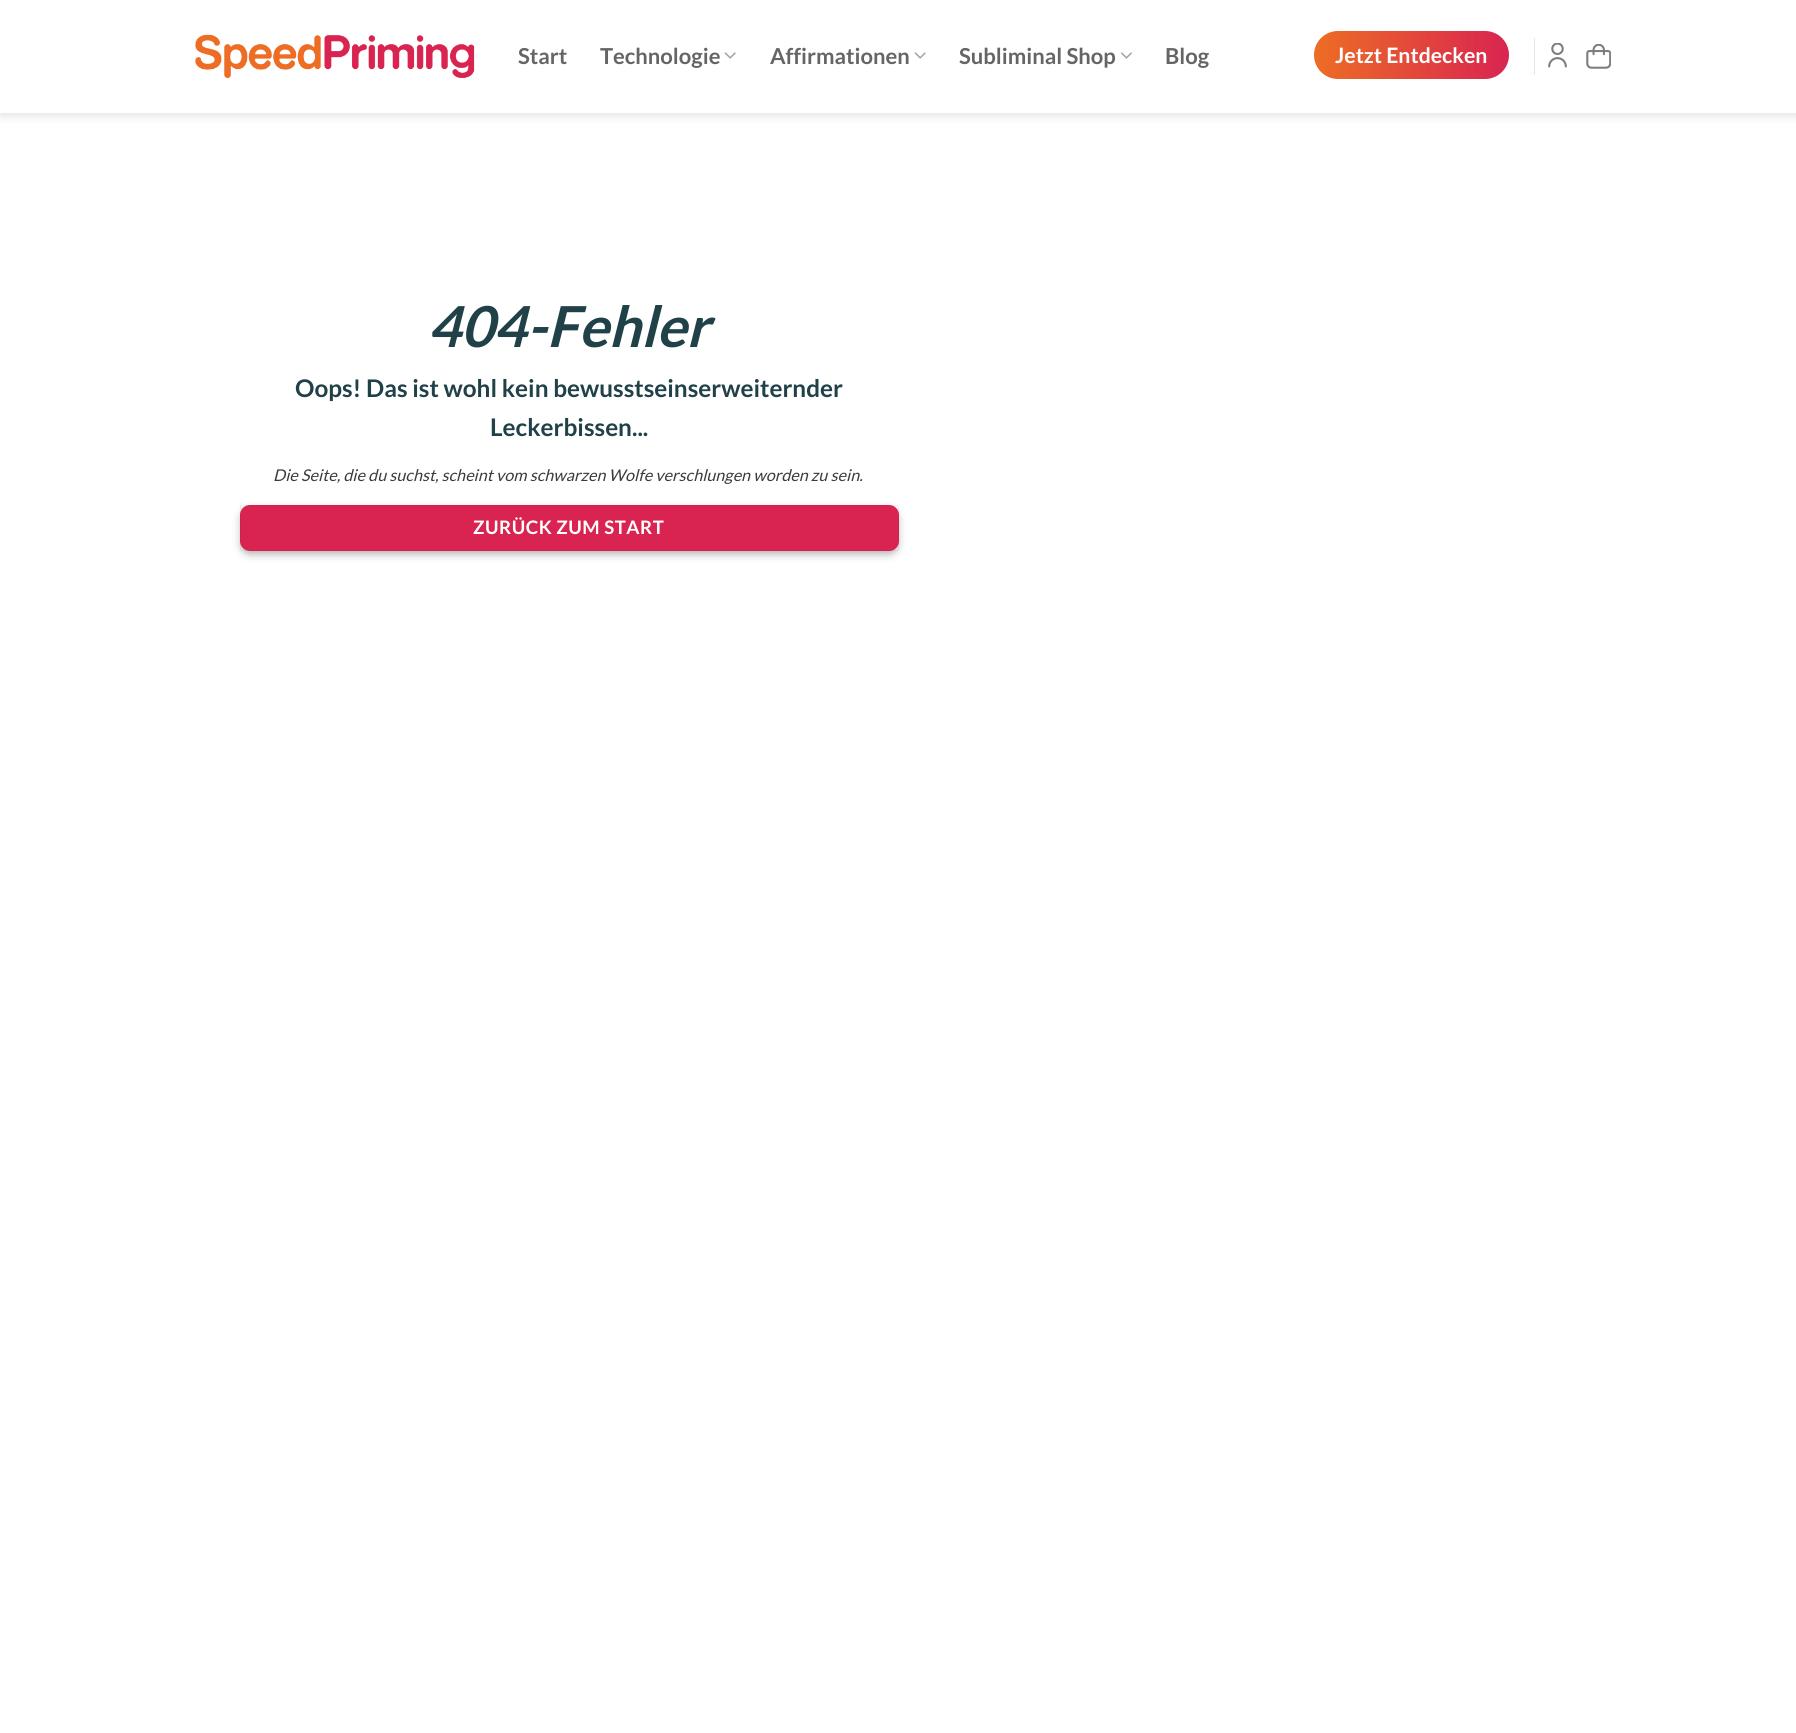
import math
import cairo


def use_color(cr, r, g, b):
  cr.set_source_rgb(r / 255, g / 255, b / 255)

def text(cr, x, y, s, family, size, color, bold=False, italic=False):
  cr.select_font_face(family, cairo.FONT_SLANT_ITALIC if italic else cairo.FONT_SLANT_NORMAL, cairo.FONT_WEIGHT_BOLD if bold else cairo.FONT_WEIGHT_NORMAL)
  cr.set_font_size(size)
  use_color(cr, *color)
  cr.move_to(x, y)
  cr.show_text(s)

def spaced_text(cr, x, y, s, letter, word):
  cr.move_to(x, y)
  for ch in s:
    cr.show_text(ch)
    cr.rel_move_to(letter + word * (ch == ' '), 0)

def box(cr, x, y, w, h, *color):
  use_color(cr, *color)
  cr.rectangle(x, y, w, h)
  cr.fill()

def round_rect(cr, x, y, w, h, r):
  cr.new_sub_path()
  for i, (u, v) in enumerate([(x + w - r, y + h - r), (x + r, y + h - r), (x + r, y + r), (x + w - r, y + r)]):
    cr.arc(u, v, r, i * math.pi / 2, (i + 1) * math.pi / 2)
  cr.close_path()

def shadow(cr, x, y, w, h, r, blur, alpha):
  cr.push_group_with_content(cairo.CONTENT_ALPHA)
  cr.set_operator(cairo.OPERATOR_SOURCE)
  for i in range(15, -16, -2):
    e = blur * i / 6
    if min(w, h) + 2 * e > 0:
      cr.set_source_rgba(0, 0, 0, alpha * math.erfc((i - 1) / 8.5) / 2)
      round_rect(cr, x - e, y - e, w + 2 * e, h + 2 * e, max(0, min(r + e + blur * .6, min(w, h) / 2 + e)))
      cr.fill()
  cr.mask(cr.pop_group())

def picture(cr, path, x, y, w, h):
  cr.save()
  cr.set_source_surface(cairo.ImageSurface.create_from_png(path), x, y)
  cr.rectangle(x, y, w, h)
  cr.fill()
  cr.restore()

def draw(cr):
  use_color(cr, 255, 255, 255)
  cr.paint()
  cr.save()
  cr.set_fill_rule(cairo.FILL_RULE_EVEN_ODD)
  cr.new_path()
  cr.move_to(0, 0)
  cr.line_to(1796, 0)
  cr.line_to(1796, 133)
  cr.line_to(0, 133)
  cr.close_path()
  cr.move_to(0, 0)
  cr.line_to(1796, 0)
  cr.line_to(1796, 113)
  cr.line_to(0, 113)
  cr.close_path()
  cr.clip()
  use_color(cr, 0, 0, 0)
  shadow(cr, 1, 1, 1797, 113, 0, 6, 0.15)
  cr.restore()
  picture(cr, "img_01.png", 195, 34, 280, 45)
  picture(cr, "img_02.png", 724, 52, 12, 7)
  picture(cr, "img_02.png", 914, 52, 12, 7)
  picture(cr, "img_03.png", 1120, 52, 12, 7)
  gradient = cairo.LinearGradient(1314, 55, 1509, 55)
  gradient.add_color_stop_rgba(0, 0.929, 0.427, 0.141, 1)
  gradient.add_color_stop_rgba(1, 0.851, 0.141, 0.318, 1)
  cr.set_source(gradient)
  round_rect(cr, 1314, 31, 195, 48, 24)
  cr.fill()
  box(cr, 1534, 38, 1, 37, 230, 230, 230)
  picture(cr, "img_04.png", 1548, 43, 19, 25)
  picture(cr, "img_05.png", 1586, 44, 25, 25)
  cr.set_source_rgba(1, 1, 1, 0.9)
  cr.rectangle(0, 112, 1796, 1)
  cr.fill()
  use_color(cr, 0, 0, 0)
  shadow(cr, 240, 509, 659, 46, 10, 4, 0.23)
  shadow(cr, 245, 514, 649, 36, 5, 4, 0.16)
  use_color(cr, 217, 36, 81)
  round_rect(cr, 240, 505, 659, 46, 10)
  cr.fill()
  cr.rectangle(240.5, 505.5, 658, 45)
  cr.set_source_rgba(0, 0, 0, 0.05)
  cr.set_line_width(1)
  cr.stroke()
  text(cr, 518, 64, "Start", "Lato", 22, (101, 101, 101), bold=True)
  text(cr, 600, 64, "Technologie", "Lato", 22, (101, 101, 101), bold=True)
  text(cr, 770, 64, "Affirmationen", "Lato", 22, (101, 101, 101), bold=True)
  text(cr, 959, 64, "Subliminal Shop", "Lato", 22, (101, 101, 101), bold=True)
  text(cr, 1165, 64, "Blog", "Lato", 22, (101, 101, 101), bold=True)
  text(cr, 1335, 63, "Jetzt Entdecken", "Lato", 21.25, (255, 255, 255), bold=True)
  text(cr, 428, 347, "404-Fehler", "Lato", 56.5, (32, 65, 71), bold=True, italic=True)
  text(cr, 295, 397, "Oops! Das ist wohl kein bewusstseinserweiternder", "Lato", 24.3, (32, 65, 71), bold=True)
  text(cr, 490, 436, "Leckerbissen...", "Lato", 24.3, (32, 65, 71), bold=True)
  text(cr, 273, 481, "Die Seite, die du suchst, scheint vom schwarzen Wolfe verschlungen worden zu sein.", "Lato", 16.2, (59, 59, 59), italic=True)
  cr.select_font_face("Lato", cairo.FONT_SLANT_NORMAL, cairo.FONT_WEIGHT_BOLD)
  cr.set_font_size(18.6)
  use_color(cr, 255, 255, 255)
  spaced_text(cr, 473, 534, "ZURÜCK ZUM START", 0.5, 0)


surface = cairo.ImageSurface(cairo.FORMAT_RGB24, 1796, 1733)
cr = cairo.Context(surface)
options = cairo.FontOptions()
options.set_hint_metrics(cairo.HINT_METRICS_OFF)
options.set_hint_style(cairo.HINT_STYLE_NONE)
cr.set_font_options(options)
cr.set_miter_limit(4)
draw(cr)
surface.write_to_png("out.png")
